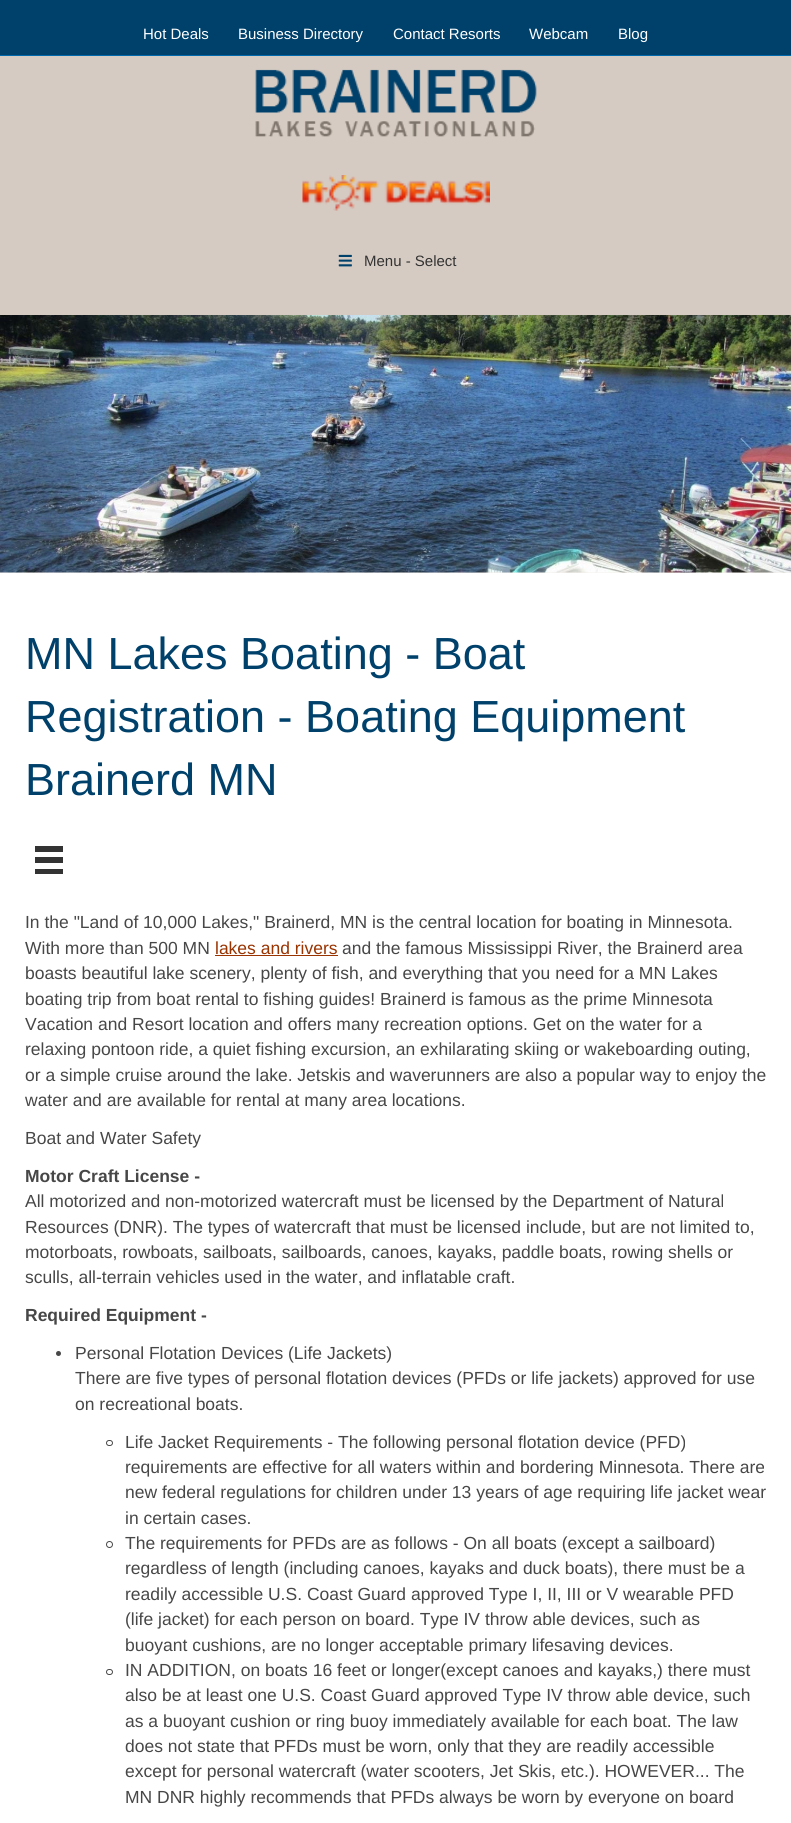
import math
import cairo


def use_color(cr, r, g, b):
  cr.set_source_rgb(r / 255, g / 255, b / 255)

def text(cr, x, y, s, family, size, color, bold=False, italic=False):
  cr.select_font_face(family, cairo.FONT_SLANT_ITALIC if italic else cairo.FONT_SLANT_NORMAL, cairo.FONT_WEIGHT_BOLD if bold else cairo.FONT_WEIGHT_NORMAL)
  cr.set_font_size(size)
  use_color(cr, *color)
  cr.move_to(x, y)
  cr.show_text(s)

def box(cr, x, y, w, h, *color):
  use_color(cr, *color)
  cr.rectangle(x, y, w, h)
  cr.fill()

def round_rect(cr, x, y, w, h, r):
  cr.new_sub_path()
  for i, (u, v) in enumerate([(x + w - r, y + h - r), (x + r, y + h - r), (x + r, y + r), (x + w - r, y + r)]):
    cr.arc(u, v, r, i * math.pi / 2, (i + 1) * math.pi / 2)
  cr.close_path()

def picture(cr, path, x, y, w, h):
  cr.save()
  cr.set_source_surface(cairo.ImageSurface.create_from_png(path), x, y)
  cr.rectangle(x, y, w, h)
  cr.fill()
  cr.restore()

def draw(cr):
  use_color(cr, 0, 65, 107)
  cr.paint()
  box(cr, 0, 55, 791, 1, 0, 105, 173)
  box(cr, 0, 56, 791, 259, 214, 203, 194)
  picture(cr, "img_01.png", 255, 69, 282, 68)
  picture(cr, "img_02.png", 302, 175, 188, 36)
  picture(cr, "img_03.png", 338, 254, 14, 13)
  box(cr, 0, 573, 791, 1250, 255, 255, 255)
  box(cr, 0, 572, 791, 1, 244, 240, 237)
  picture(cr, "img_04.png", 0, 315, 791, 258)
  box(cr, 35, 846, 28, 6, 51, 51, 51)
  box(cr, 35, 857, 28, 6, 51, 51, 51)
  box(cr, 35, 869, 28, 5, 51, 51, 51)
  box(cr, 215, 955, 123, 1, 153, 51, 0)
  use_color(cr, 71, 71, 71)
  cr.arc(58.5, 1353.5, 2.5, 0, 2 * math.pi)
  cr.fill()
  round_rect(cr, 106.5, 1440.5, 6, 5, 2.5)
  cr.set_line_width(1)
  cr.stroke()
  cr.arc(109.5, 1544.5, 3, 0, 2 * math.pi)
  cr.stroke()
  round_rect(cr, 106.5, 1669.5, 6, 5, 2.5)
  cr.stroke()
  text(cr, 143, 39, "Hot Deals", "Liberation Sans", 15, (255, 255, 255))
  text(cr, 238, 39, "Business Directory", "Liberation Sans", 15, (255, 255, 255))
  text(cr, 393, 39, "Contact Resorts", "Liberation Sans", 15, (255, 255, 255))
  text(cr, 529, 39, "Webcam", "Liberation Sans", 15, (255, 255, 255))
  text(cr, 618, 39, "Blog", "Liberation Sans", 15, (255, 255, 255))
  text(cr, 364, 266, "Menu - Select", "Liberation Sans", 15, (51, 51, 51))
  text(cr, 25, 669, "MN Lakes Boating - Boat", "Liberation Sans", 45, (0, 65, 107))
  text(cr, 25, 732, "Registration - Boating Equipment", "Liberation Sans", 45, (0, 65, 107))
  text(cr, 25, 795, "Brainerd MN", "Liberation Sans", 45, (0, 65, 107))
  text(cr, 25, 928, "In the \"Land of 10,000 Lakes,\" Brainerd, MN is the central location for boating in Minnesota.", "Liberation Sans", 17.5, (71, 71, 71))
  text(cr, 25, 954, "With more than 500 MN", "Liberation Sans", 17.5, (71, 71, 71))
  text(cr, 215, 954, "lakes and rivers", "Liberation Sans", 17.5, (153, 51, 0))
  text(cr, 342, 954, "and the famous Mississippi River, the Brainerd area", "Liberation Sans", 17.5, (71, 71, 71))
  text(cr, 25, 979, "boasts beautiful lake scenery, plenty of fish, and everything that you need for a MN Lakes", "Liberation Sans", 17.5, (71, 71, 71))
  text(cr, 25, 1005, "boating trip from boat rental to fishing guides! Brainerd is famous as the prime Minnesota", "Liberation Sans", 17.5, (71, 71, 71))
  text(cr, 25, 1030, "Vacation and Resort location and offers many recreation options. Get on the water for a", "Liberation Sans", 17.5, (71, 71, 71))
  text(cr, 25, 1055, "relaxing pontoon ride, a quiet fishing excursion, an exhilarating skiing or wakeboarding outing,", "Liberation Sans", 17.5, (71, 71, 71))
  text(cr, 25, 1081, "or a simple cruise around the lake. Jetskis and waverunners are also a popular way to enjoy the", "Liberation Sans", 17.5, (71, 71, 71))
  text(cr, 25, 1106, "water and are available for rental at many area locations.", "Liberation Sans", 17.5, (71, 71, 71))
  text(cr, 25, 1144, "Boat and Water Safety", "Liberation Sans", 17.5, (71, 71, 71))
  text(cr, 25, 1182, "Motor Craft License -", "Liberation Sans", 17.5, (71, 71, 71), bold=True)
  text(cr, 25, 1207, "All motorized and non-motorized watercraft must be licensed by the Department of Natural", "Liberation Sans", 17.5, (71, 71, 71))
  text(cr, 25, 1233, "Resources (DNR). The types of watercraft that must be licensed include, but are not limited to,", "Liberation Sans", 17.5, (71, 71, 71))
  text(cr, 25, 1258, "motorboats, rowboats, sailboats, sailboards, canoes, kayaks, paddle boats, rowing shells or", "Liberation Sans", 17.5, (71, 71, 71))
  text(cr, 25, 1283, "sculls, all-terrain vehicles used in the water, and inflatable craft.", "Liberation Sans", 17.5, (71, 71, 71))
  text(cr, 25, 1321, "Required Equipment -", "Liberation Sans", 17.5, (71, 71, 71), bold=True)
  text(cr, 75, 1359, "Personal Flotation Devices (Life Jackets)", "Liberation Sans", 17.5, (71, 71, 71))
  text(cr, 75, 1384, "There are five types of personal flotation devices (PFDs or life jackets) approved for use", "Liberation Sans", 17.5, (71, 71, 71))
  text(cr, 75, 1410, "on recreational boats.", "Liberation Sans", 17.5, (71, 71, 71))
  text(cr, 125, 1448, "Life Jacket Requirements - The following personal flotation device (PFD)", "Liberation Sans", 17.5, (71, 71, 71))
  text(cr, 125, 1473, "requirements are effective for all waters within and bordering Minnesota. There are", "Liberation Sans", 17.5, (71, 71, 71))
  text(cr, 125, 1498, "new federal regulations for children under 13 years of age requiring life jacket wear", "Liberation Sans", 17.5, (71, 71, 71))
  text(cr, 125, 1524, "in certain cases.", "Liberation Sans", 17.5, (71, 71, 71))
  text(cr, 125, 1549, "The requirements for PFDs are as follows - On all boats (except a sailboard)", "Liberation Sans", 17.5, (71, 71, 71))
  text(cr, 125, 1574, "regardless of length (including canoes, kayaks and duck boats), there must be a", "Liberation Sans", 17.5, (71, 71, 71))
  text(cr, 125, 1600, "readily accessible U.S. Coast Guard approved Type I, II, III or V wearable PFD", "Liberation Sans", 17.5, (71, 71, 71))
  text(cr, 125, 1625, "(life jacket) for each person on board. Type IV throw able devices, such as", "Liberation Sans", 17.5, (71, 71, 71))
  text(cr, 125, 1651, "buoyant cushions, are no longer acceptable primary lifesaving devices.", "Liberation Sans", 17.5, (71, 71, 71))
  text(cr, 125, 1676, "IN ADDITION, on boats 16 feet or longer(except canoes and kayaks,) there must", "Liberation Sans", 17.5, (71, 71, 71))
  text(cr, 125, 1701, "also be at least one U.S. Coast Guard approved Type IV throw able device, such", "Liberation Sans", 17.5, (71, 71, 71))
  text(cr, 125, 1727, "as a buoyant cushion or ring buoy immediately available for each boat. The law", "Liberation Sans", 17.5, (71, 71, 71))
  text(cr, 125, 1752, "does not state that PFDs must be worn, only that they are readily accessible", "Liberation Sans", 17.5, (71, 71, 71))
  text(cr, 125, 1777, "except for personal watercraft (water scooters, Jet Skis, etc.). HOWEVER... The", "Liberation Sans", 17.5, (71, 71, 71))
  text(cr, 125, 1803, "MN DNR highly recommends that PFDs always be worn by everyone on board", "Liberation Sans", 17.5, (71, 71, 71))


surface = cairo.ImageSurface(cairo.FORMAT_RGB24, 791, 1823)
cr = cairo.Context(surface)
options = cairo.FontOptions()
options.set_hint_metrics(cairo.HINT_METRICS_OFF)
options.set_hint_style(cairo.HINT_STYLE_NONE)
cr.set_font_options(options)
cr.set_miter_limit(4)
draw(cr)
surface.write_to_png("out.png")
